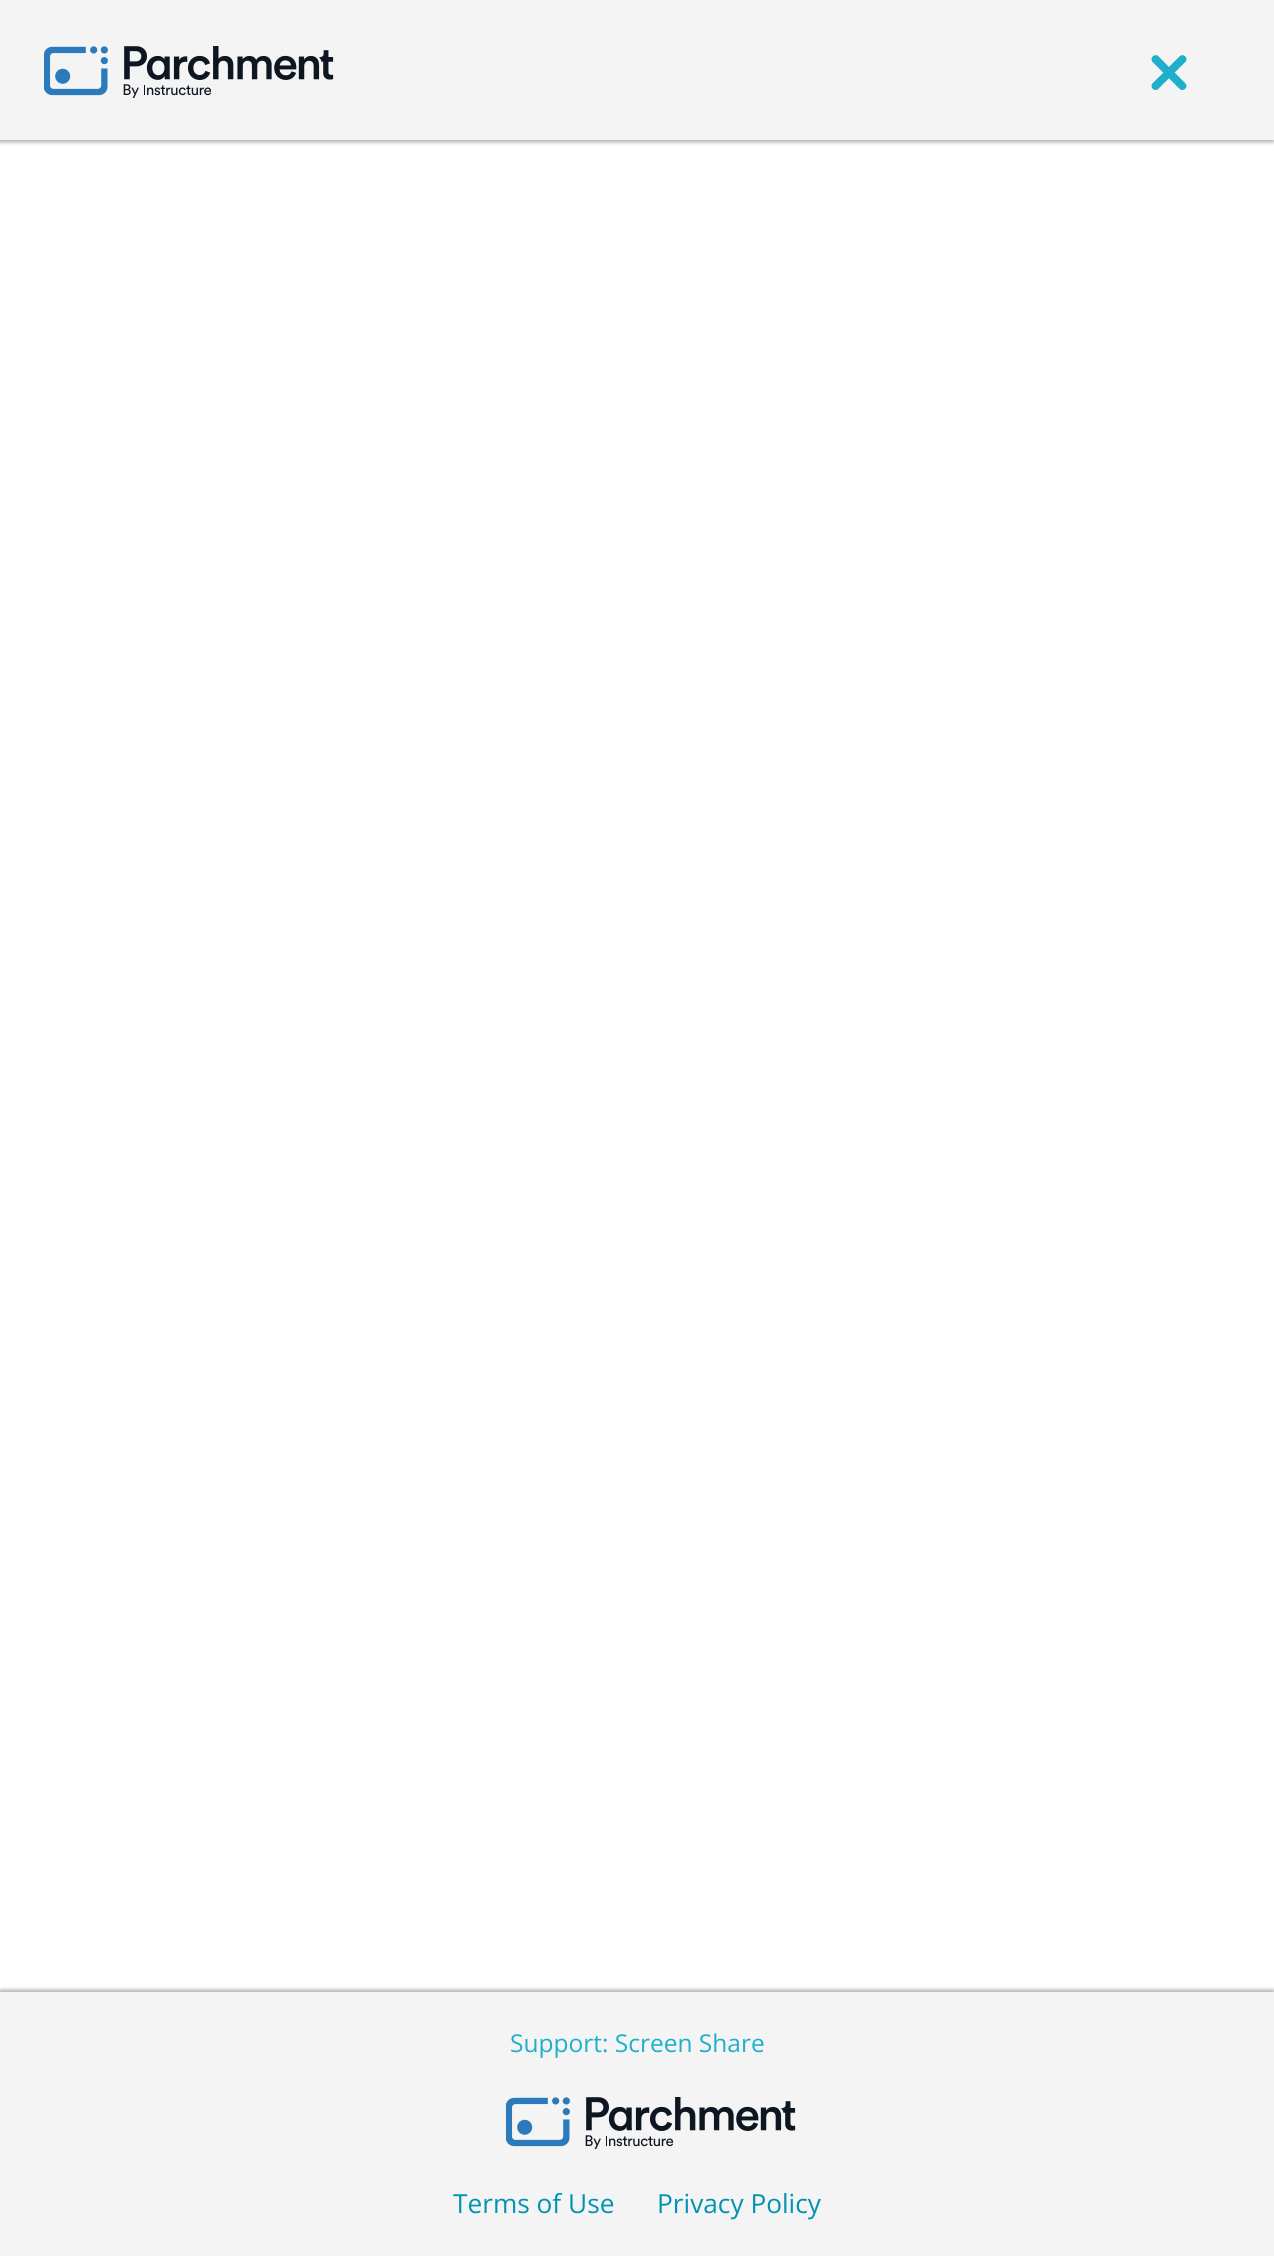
import math
import cairo


def use_color(cr, r, g, b):
  cr.set_source_rgb(r / 255, g / 255, b / 255)

def text(cr, x, y, s, family, size, color, bold=False, italic=False):
  cr.select_font_face(family, cairo.FONT_SLANT_ITALIC if italic else cairo.FONT_SLANT_NORMAL, cairo.FONT_WEIGHT_BOLD if bold else cairo.FONT_WEIGHT_NORMAL)
  cr.set_font_size(size)
  use_color(cr, *color)
  cr.move_to(x, y)
  cr.show_text(s)

def box(cr, x, y, w, h, *color):
  use_color(cr, *color)
  cr.rectangle(x, y, w, h)
  cr.fill()

def round_rect(cr, x, y, w, h, r):
  cr.new_sub_path()
  for i, (u, v) in enumerate([(x + w - r, y + h - r), (x + r, y + h - r), (x + r, y + r), (x + w - r, y + r)]):
    cr.arc(u, v, r, i * math.pi / 2, (i + 1) * math.pi / 2)
  cr.close_path()

def shadow(cr, x, y, w, h, r, blur, alpha):
  cr.push_group_with_content(cairo.CONTENT_ALPHA)
  cr.set_operator(cairo.OPERATOR_SOURCE)
  for i in range(15, -16, -2):
    e = blur * i / 6
    if min(w, h) + 2 * e > 0:
      cr.set_source_rgba(0, 0, 0, alpha * math.erfc((i - 1) / 8.5) / 2)
      round_rect(cr, x - e, y - e, w + 2 * e, h + 2 * e, max(0, min(r + e + blur * .6, min(w, h) / 2 + e)))
      cr.fill()
  cr.mask(cr.pop_group())

def picture(cr, path, x, y, w, h):
  cr.save()
  cr.set_source_surface(cairo.ImageSurface.create_from_png(path), x, y)
  cr.rectangle(x, y, w, h)
  cr.fill()
  cr.restore()

def draw(cr):
  use_color(cr, 255, 255, 255)
  cr.paint()
  use_color(cr, 0, 0, 0)
  shadow(cr, 0, 2, 1274, 140, 0, 2, 0.24)
  shadow(cr, 0, 2, 1274, 140, 0, 2.5, 0.12)
  box(cr, 0, 0, 1274, 140, 244, 244, 244)
  picture(cr, "img_01.png", 44, 46, 290, 52)
  picture(cr, "img_02.png", 1151, 55, 36, 35)
  use_color(cr, 0, 0, 0)
  shadow(cr, 0, 1990, 1274, 266, 0, 2, 0.24)
  shadow(cr, 0, 1990, 1274, 266, 0, 2.5, 0.12)
  box(cr, 0, 1992, 1274, 264, 244, 244, 244)
  picture(cr, "img_01.png", 506, 2097, 290, 52)
  text(cr, 510, 2052, "Support: Screen Share", "Open Sans", 24.5, (29, 175, 204))
  text(cr, 453, 2213, "Terms of Use", "Open Sans", 26.25, (0, 147, 178))
  text(cr, 657, 2213, "Privacy Policy", "Open Sans", 26.25, (0, 147, 178))


surface = cairo.ImageSurface(cairo.FORMAT_RGB24, 1274, 2256)
cr = cairo.Context(surface)
options = cairo.FontOptions()
options.set_hint_metrics(cairo.HINT_METRICS_OFF)
options.set_hint_style(cairo.HINT_STYLE_NONE)
cr.set_font_options(options)
cr.set_miter_limit(4)
draw(cr)
surface.write_to_png("out.png")
